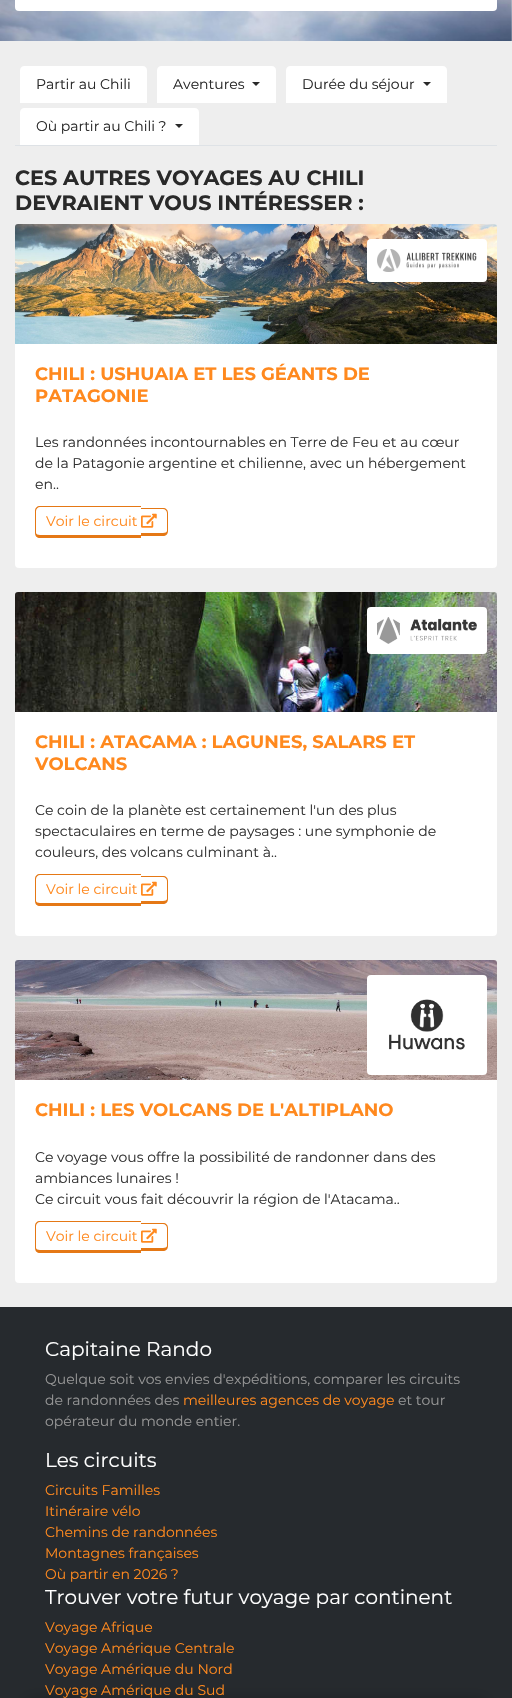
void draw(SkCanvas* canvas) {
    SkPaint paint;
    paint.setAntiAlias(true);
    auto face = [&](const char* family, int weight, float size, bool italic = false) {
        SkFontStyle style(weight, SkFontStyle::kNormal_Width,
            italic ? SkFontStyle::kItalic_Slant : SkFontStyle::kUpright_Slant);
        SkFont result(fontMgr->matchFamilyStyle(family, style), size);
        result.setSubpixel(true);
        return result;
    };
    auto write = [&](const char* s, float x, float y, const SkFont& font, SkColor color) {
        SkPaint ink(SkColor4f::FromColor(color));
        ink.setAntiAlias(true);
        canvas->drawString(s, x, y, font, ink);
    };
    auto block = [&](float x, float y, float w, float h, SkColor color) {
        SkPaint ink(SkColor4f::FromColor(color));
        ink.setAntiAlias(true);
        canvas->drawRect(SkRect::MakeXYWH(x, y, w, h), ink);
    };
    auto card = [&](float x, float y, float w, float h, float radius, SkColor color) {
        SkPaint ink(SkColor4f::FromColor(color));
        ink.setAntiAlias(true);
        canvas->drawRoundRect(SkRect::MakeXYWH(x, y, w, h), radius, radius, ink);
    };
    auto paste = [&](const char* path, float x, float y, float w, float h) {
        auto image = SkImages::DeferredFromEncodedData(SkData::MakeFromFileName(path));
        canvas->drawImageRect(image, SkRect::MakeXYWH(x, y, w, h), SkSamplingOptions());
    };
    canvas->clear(SK_ColorWHITE);
    paste("pic1.png", 0, 0, 512, 41);
    card(15, -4, 482, 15, 4, SK_ColorWHITE);
    block(0, 1307, 512, 391, SkColorSetRGB(38, 42, 46));
    paint.setColor(SkColorSetARGB(66, 0, 0, 0));
    paint.setMaskFilter(SkMaskFilter::MakeBlur(kNormal_SkBlurStyle, 7.5f));
    canvas->drawRoundRect(SkRect::MakeXYWH(26, 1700, 460, 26), 5, 5, paint);
    paint.setMaskFilter(nullptr);
    block(0, 41, 512, 1266, SkColorSetRGB(238, 238, 238));
    block(15, 145, 482, 1, SkColorSetRGB(222, 226, 230));
    paint.setColor(SK_ColorWHITE);
    canvas->drawPath(SkPathBuilder().moveTo(24, 66).lineTo(143, 66).cubicTo(145, 66, 147, 68, 147, 70).lineTo(147, 103).lineTo(20, 103).lineTo(20, 70).cubicTo(20, 68, 22, 66, 24, 66).close().detach(), paint);
    auto kFont1 = face("Montserrat", 400, 14);
    write("Partir au Chili", 36, 89, kFont1, SkColorSetRGB(41, 41, 41));
    canvas->drawPath(SkPathBuilder().moveTo(161, 66).lineTo(272, 66).cubicTo(274, 66, 276, 68, 276, 70).lineTo(276, 103).lineTo(157, 103).lineTo(157, 70).cubicTo(157, 68, 159, 66, 161, 66).close().detach(), paint);
    write("Aventures", 173, 89, kFont1, SkColorSetRGB(41, 41, 41));
    paint.setColor(SkColorSetRGB(41, 41, 41));
    canvas->drawPath(SkPathBuilder().moveTo(252, 82).lineTo(260, 82).lineTo(256, 86).close().detach(), paint);
    paint.setColor(SK_ColorWHITE);
    canvas->drawPath(SkPathBuilder().moveTo(290, 66).lineTo(443, 66).cubicTo(445, 66, 447, 68, 447, 70).lineTo(447, 103).lineTo(286, 103).lineTo(286, 70).cubicTo(286, 68, 288, 66, 290, 66).close().detach(), paint);
    write("Durée du séjour", 302, 89, kFont1, SkColorSetRGB(41, 41, 41));
    paint.setColor(SkColorSetRGB(41, 41, 41));
    canvas->drawPath(SkPathBuilder().moveTo(423, 82).lineTo(431, 82).lineTo(427, 86).close().detach(), paint);
    paint.setColor(SK_ColorWHITE);
    canvas->drawPath(SkPathBuilder().moveTo(24, 108).lineTo(195, 108).cubicTo(197, 108, 199, 110, 199, 112).lineTo(199, 145).lineTo(20, 145).lineTo(20, 112).cubicTo(20, 110, 22, 108, 24, 108).close().detach(), paint);
    write("Où partir au Chili ?", 36, 131, kFont1, SkColorSetRGB(41, 41, 41));
    paint.setColor(SkColorSetRGB(41, 41, 41));
    canvas->drawPath(SkPathBuilder().moveTo(175, 124).lineTo(183, 124).lineTo(179, 128).close().detach(), paint);
    auto kFont2 = face("Montserrat", 700, 20.75f);
    write("CES AUTRES VOYAGES AU CHILI", 15, 185, kFont2, SkColorSetRGB(41, 41, 41));
    write("DEVRAIENT VOUS INTÉRESSER :", 15, 210, kFont2, SkColorSetRGB(41, 41, 41));
    card(15, 224, 482, 344, 4, SK_ColorWHITE);
    paste("pic2.png", 15, 224, 482, 120);
    card(367, 239, 120, 43, 4, SK_ColorWHITE);
    paste("pic3.png", 377, 249, 100, 23);
    auto kFont3 = face("Montserrat", 700, 18);
    write("CHILI : USHUAIA ET LES GÉANTS DE", 35, 380, kFont3, SkColorSetRGB(255, 137, 30));
    write("PATAGONIE", 35, 402, kFont3, SkColorSetRGB(255, 137, 30));
    write("Les randonnées incontournables en Terre de Feu et au cœur", 35, 447, kFont1, SkColorSetRGB(51, 51, 51));
    write("de la Patagonie argentine et chilienne, avec un hébergement", 35, 468, kFont1, SkColorSetRGB(51, 51, 51));
    write("en..", 35, 489, kFont1, SkColorSetRGB(51, 51, 51));
    paint.setColor(SkColorSetRGB(229, 120, 21));
    canvas->drawPath(SkPathBuilder(SkPathFillType::kEvenOdd).moveTo(40, 506).lineTo(141, 506).lineTo(141, 538).lineTo(40, 538).cubicTo(37, 538, 35, 536, 35, 533).lineTo(35, 511).cubicTo(35, 508, 37, 506, 40, 506).close().moveTo(40, 507).lineTo(141, 507).lineTo(141, 535).lineTo(40, 535).cubicTo(38, 535, 36, 534, 36, 533).lineTo(36, 511).cubicTo(36, 509, 38, 507, 40, 507).close().detach(), paint);
    canvas->drawPath(SkPathBuilder(SkPathFillType::kEvenOdd).moveTo(141, 508).lineTo(163, 508).cubicTo(166, 508, 168, 510, 168, 513).lineTo(168, 531).cubicTo(168, 534, 166, 536, 163, 536).lineTo(141, 536).close().moveTo(141, 509).lineTo(163, 509).cubicTo(165, 509, 167, 511, 167, 513).lineTo(167, 531).cubicTo(167, 532, 165, 533, 163, 533).lineTo(141, 533).close().detach(), paint);
    write("Voir le circuit", 46, 526, kFont1, SkColorSetRGB(255, 137, 30));
    paste("pic4.png", 141, 513, 16, 15);
    card(15, 592, 482, 344, 4, SK_ColorWHITE);
    paste("pic5.png", 15, 592, 482, 120);
    card(367, 607, 120, 47, 4, SK_ColorWHITE);
    paste("pic6.png", 377, 617, 100, 27);
    write("CHILI : ATACAMA : LAGUNES, SALARS ET", 35, 748, kFont3, SkColorSetRGB(255, 137, 30));
    write("VOLCANS", 35, 770, kFont3, SkColorSetRGB(255, 137, 30));
    write("Ce coin de la planète est certainement l'un des plus", 35, 815, kFont1, SkColorSetRGB(51, 51, 51));
    write("spectaculaires en terme de paysages : une symphonie de", 35, 836, kFont1, SkColorSetRGB(51, 51, 51));
    write("couleurs, des volcans culminant à..", 35, 857, kFont1, SkColorSetRGB(51, 51, 51));
    canvas->drawPath(SkPathBuilder(SkPathFillType::kEvenOdd).moveTo(40, 874).lineTo(141, 874).lineTo(141, 906).lineTo(40, 906).cubicTo(37, 906, 35, 904, 35, 901).lineTo(35, 879).cubicTo(35, 876, 37, 874, 40, 874).close().moveTo(40, 875).lineTo(141, 875).lineTo(141, 903).lineTo(40, 903).cubicTo(38, 903, 36, 902, 36, 901).lineTo(36, 879).cubicTo(36, 877, 38, 875, 40, 875).close().detach(), paint);
    canvas->drawPath(SkPathBuilder(SkPathFillType::kEvenOdd).moveTo(141, 876).lineTo(163, 876).cubicTo(166, 876, 168, 878, 168, 881).lineTo(168, 899).cubicTo(168, 902, 166, 904, 163, 904).lineTo(141, 904).close().moveTo(141, 877).lineTo(163, 877).cubicTo(165, 877, 167, 879, 167, 881).lineTo(167, 899).cubicTo(167, 900, 165, 901, 163, 901).lineTo(141, 901).close().detach(), paint);
    write("Voir le circuit", 46, 894, kFont1, SkColorSetRGB(255, 137, 30));
    paste("pic4.png", 141, 881, 16, 15);
    card(15, 960, 482, 323, 4, SK_ColorWHITE);
    paste("pic7.png", 15, 960, 482, 120);
    card(367, 975, 120, 100, 4, SK_ColorWHITE);
    paste("pic8.png", 389, 999, 76, 51);
    write("CHILI : LES VOLCANS DE L'ALTIPLANO", 35, 1116, kFont3, SkColorSetRGB(255, 137, 30));
    write("Ce voyage vous offre la possibilité de randonner dans des", 35, 1162, kFont1, SkColorSetRGB(51, 51, 51));
    write("ambiances lunaires !", 35, 1183, kFont1, SkColorSetRGB(51, 51, 51));
    write("Ce circuit vous fait découvrir la région de l'Atacama..", 35, 1204, kFont1, SkColorSetRGB(51, 51, 51));
    canvas->drawPath(SkPathBuilder(SkPathFillType::kEvenOdd).moveTo(40, 1221).lineTo(141, 1221).lineTo(141, 1253).lineTo(40, 1253).cubicTo(37, 1253, 35, 1251, 35, 1248).lineTo(35, 1226).cubicTo(35, 1223, 37, 1221, 40, 1221).close().moveTo(40, 1222).lineTo(141, 1222).lineTo(141, 1250).lineTo(40, 1250).cubicTo(38, 1250, 36, 1249, 36, 1248).lineTo(36, 1226).cubicTo(36, 1224, 38, 1222, 40, 1222).close().detach(), paint);
    canvas->drawPath(SkPathBuilder(SkPathFillType::kEvenOdd).moveTo(141, 1223).lineTo(163, 1223).cubicTo(166, 1223, 168, 1225, 168, 1228).lineTo(168, 1246).cubicTo(168, 1249, 166, 1251, 163, 1251).lineTo(141, 1251).close().moveTo(141, 1224).lineTo(163, 1224).cubicTo(165, 1224, 167, 1226, 167, 1228).lineTo(167, 1246).cubicTo(167, 1247, 165, 1248, 163, 1248).lineTo(141, 1248).close().detach(), paint);
    write("Voir le circuit", 46, 1241, kFont1, SkColorSetRGB(255, 137, 30));
    paste("pic4.png", 141, 1228, 16, 15);
    auto kFont4 = face("Montserrat", 400, 20);
    write("Capitaine Rando", 45, 1356, kFont4, SK_ColorWHITE);
    write("Quelque soit vos envies d'expéditions, comparer les circuits", 45, 1384, kFont1, SkColorSetRGB(150, 150, 150));
    write("de randonnées des", 45, 1405, kFont1, SkColorSetRGB(150, 150, 150));
    write("meilleures agences de voyage", 183, 1405, kFont1, SkColorSetRGB(255, 137, 30));
    write("et tour", 398, 1405, kFont1, SkColorSetRGB(150, 150, 150));
    write("opérateur du monde entier.", 45, 1426, kFont1, SkColorSetRGB(150, 150, 150));
    write("Les circuits", 45, 1467, kFont4, SK_ColorWHITE);
    write("Circuits Familles", 45, 1495, kFont1, SkColorSetRGB(255, 137, 30));
    write("Itinéraire vélo", 45, 1516, kFont1, SkColorSetRGB(255, 137, 30));
    write("Chemins de randonnées", 45, 1537, kFont1, SkColorSetRGB(255, 137, 30));
    write("Montagnes françaises", 45, 1558, kFont1, SkColorSetRGB(255, 137, 30));
    write("Où partir en 2026 ?", 45, 1579, kFont1, SkColorSetRGB(255, 137, 30));
    write("Trouver votre futur voyage par continent", 45, 1604, kFont4, SK_ColorWHITE);
    write("Voyage Afrique", 45, 1632, kFont1, SkColorSetRGB(255, 137, 30));
    write("Voyage Amérique Centrale", 45, 1653, kFont1, SkColorSetRGB(255, 137, 30));
    write("Voyage Amérique du Nord", 45, 1674, kFont1, SkColorSetRGB(255, 137, 30));
    write("Voyage Amérique du Sud", 45, 1695, kFont1, SkColorSetRGB(255, 137, 30));
}
